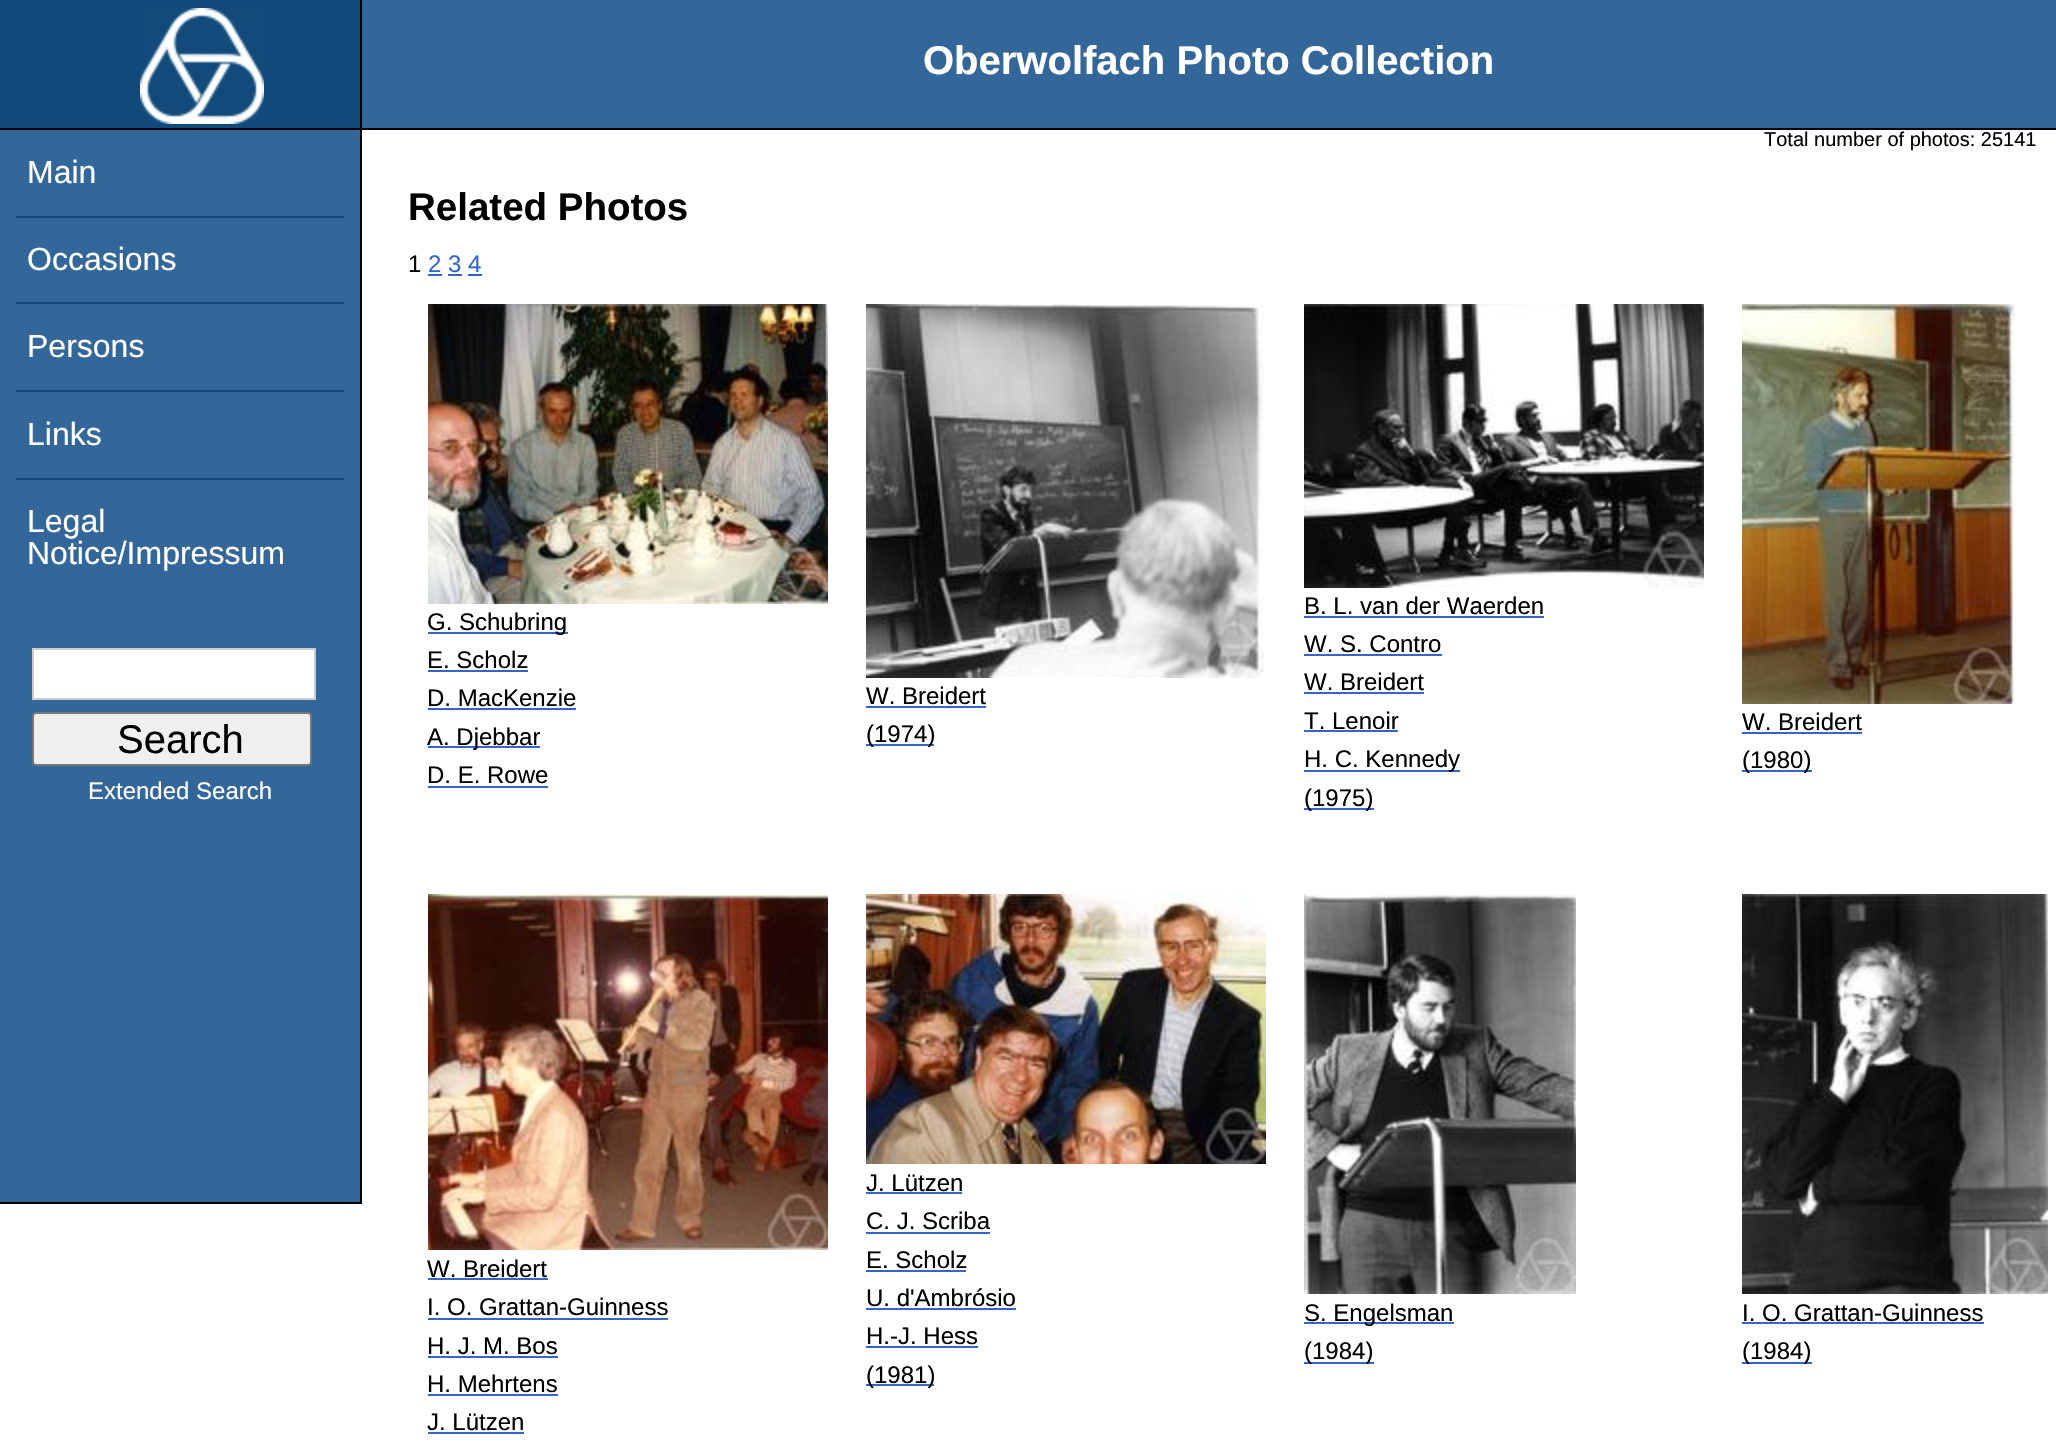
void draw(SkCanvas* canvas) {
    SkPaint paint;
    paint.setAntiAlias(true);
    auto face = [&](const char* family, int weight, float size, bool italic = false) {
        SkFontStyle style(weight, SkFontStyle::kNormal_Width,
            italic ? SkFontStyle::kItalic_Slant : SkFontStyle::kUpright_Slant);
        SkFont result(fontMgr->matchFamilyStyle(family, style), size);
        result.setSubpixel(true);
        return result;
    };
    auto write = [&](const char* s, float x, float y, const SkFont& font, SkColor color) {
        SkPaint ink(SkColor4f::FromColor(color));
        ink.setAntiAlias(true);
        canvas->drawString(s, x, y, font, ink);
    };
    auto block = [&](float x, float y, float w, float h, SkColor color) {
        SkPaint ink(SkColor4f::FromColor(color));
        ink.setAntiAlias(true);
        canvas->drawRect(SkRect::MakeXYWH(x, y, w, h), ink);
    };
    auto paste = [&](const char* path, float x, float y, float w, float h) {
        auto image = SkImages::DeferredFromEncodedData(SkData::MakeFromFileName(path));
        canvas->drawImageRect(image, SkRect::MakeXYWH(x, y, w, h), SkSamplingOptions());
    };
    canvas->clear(SK_ColorWHITE);
    block(362, 0, 1694, 128, SkColorSetRGB(51, 102, 153));
    block(0, 128, 2056, 2, SK_ColorBLACK);
    block(0, 0, 360, 128, SkColorSetRGB(16, 74, 123));
    block(360, 0, 2, 128, SK_ColorBLACK);
    paste("pic1.png", 140, 8, 124, 116);
    auto kFont1 = face("Liberation Sans", 700, 40);
    write("Oberwolfach Photo Collection", 923, 74, kFont1, SK_ColorWHITE);
    auto kFont2 = face("Liberation Sans", 400, 20);
    write("Total number of photos: 25141", 1764, 146, kFont2, SK_ColorBLACK);
    block(0, 130, 360, 1072, SkColorSetRGB(51, 102, 153));
    block(360, 130, 2, 1074, SK_ColorBLACK);
    block(0, 1202, 362, 2, SK_ColorBLACK);
    auto kFont3 = face("Liberation Sans", 400, 32);
    write("Main", 27, 183, kFont3, SK_ColorWHITE);
    block(16, 216, 328, 2, SkColorSetRGB(16, 74, 123));
    write("Occasions", 27, 270, kFont3, SK_ColorWHITE);
    block(16, 302, 328, 2, SkColorSetRGB(16, 74, 123));
    write("Persons", 27, 357, kFont3, SK_ColorWHITE);
    block(16, 390, 328, 2, SkColorSetRGB(16, 74, 123));
    write("Links", 27, 445, kFont3, SK_ColorWHITE);
    block(16, 478, 328, 2, SkColorSetRGB(16, 74, 123));
    write("Legal", 27, 532, kFont3, SK_ColorWHITE);
    write("Notice/Impressum", 27, 564, kFont3, SK_ColorWHITE);
    paint.setColor(SK_ColorWHITE);
    canvas->drawRect(SkRect::MakeXYWH(33, 649, 282, 50), paint);
    paint.setStyle(SkPaint::kStroke_Style);
    paint.setStrokeWidth(2);
    paint.setColor(SkColorSetRGB(204, 204, 204));
    canvas->drawRect(SkRect::MakeXYWH(33, 649, 282, 50), paint);
    paint.setStyle(SkPaint::kFill_Style);
    paint.setColor(SkColorSetRGB(239, 239, 239));
    canvas->drawRoundRect(SkRect::MakeXYWH(33, 713, 278, 52), 3, 3, paint);
    paint.setStyle(SkPaint::kStroke_Style);
    paint.setColor(SkColorSetRGB(118, 118, 118));
    canvas->drawRoundRect(SkRect::MakeXYWH(33, 713, 278, 52), 3, 3, paint);
    auto kFont4 = face("Liberation Sans", 400, 40);
    write("Search", 117, 753, kFont4, SK_ColorBLACK);
    auto kFont5 = face("Liberation Sans", 400, 24);
    write("Extended Search", 88, 799, kFont5, SK_ColorWHITE);
    auto kFont6 = face("Liberation Sans", 700, 38.5f);
    write("Related Photos", 408, 220, kFont6, SK_ColorBLACK);
    write("1", 408, 272, kFont5, SK_ColorBLACK);
    write("2 3 4", 428, 272, kFont5, SkColorSetRGB(51, 102, 204));
    block(428, 274, 14, 2, SkColorSetRGB(51, 102, 204));
    block(448, 274, 14, 2, SkColorSetRGB(51, 102, 204));
    block(468, 274, 14, 2, SkColorSetRGB(51, 102, 204));
    paste("pic2.png", 428, 304, 400, 300);
    block(428, 632, 140, 2, SkColorSetRGB(51, 102, 204));
    write("G. Schubring", 427, 630, kFont5, SK_ColorBLACK);
    write("E. Scholz", 427, 668, kFont5, SK_ColorBLACK);
    block(428, 670, 100, 2, SkColorSetRGB(51, 102, 204));
    write("D. MacKenzie", 427, 706, kFont5, SK_ColorBLACK);
    block(428, 708, 148, 2, SkColorSetRGB(51, 102, 204));
    block(428, 746, 112, 2, SkColorSetRGB(51, 102, 204));
    write("A. Djebbar", 427, 745, kFont5, SK_ColorBLACK);
    write("D. E. Rowe", 427, 783, kFont5, SK_ColorBLACK);
    block(428, 786, 120, 2, SkColorSetRGB(51, 102, 204));
    paste("pic3.png", 866, 304, 398, 374);
    write("W. Breidert", 866, 704, kFont5, SK_ColorBLACK);
    block(866, 706, 120, 2, SkColorSetRGB(51, 102, 204));
    block(866, 744, 68, 2, SkColorSetRGB(51, 102, 204));
    write("(1974)", 866, 742, kFont5, SK_ColorBLACK);
    paste("pic4.png", 1304, 304, 400, 284);
    write("B. L. van der Waerden", 1304, 614, kFont5, SK_ColorBLACK);
    block(1304, 616, 240, 2, SkColorSetRGB(51, 102, 204));
    write("W. S. Contro", 1304, 652, kFont5, SK_ColorBLACK);
    block(1304, 654, 138, 2, SkColorSetRGB(51, 102, 204));
    write("W. Breidert", 1304, 690, kFont5, SK_ColorBLACK);
    block(1304, 692, 120, 2, SkColorSetRGB(51, 102, 204));
    write("T. Lenoir", 1304, 729, kFont5, SK_ColorBLACK);
    block(1304, 730, 94, 2, SkColorSetRGB(51, 102, 204));
    block(1304, 770, 156, 2, SkColorSetRGB(51, 102, 204));
    write("H. C. Kennedy", 1304, 767, kFont5, SK_ColorBLACK);
    block(1304, 808, 70, 2, SkColorSetRGB(51, 102, 204));
    write("(1975)", 1304, 806, kFont5, SK_ColorBLACK);
    paste("pic5.png", 1742, 304, 272, 400);
    write("W. Breidert", 1742, 730, kFont5, SK_ColorBLACK);
    block(1742, 732, 120, 2, SkColorSetRGB(51, 102, 204));
    block(1742, 770, 70, 2, SkColorSetRGB(51, 102, 204));
    write("(1980)", 1742, 768, kFont5, SK_ColorBLACK);
    paste("pic6.png", 428, 894, 400, 356);
    write("W. Breidert", 427, 1277, kFont5, SK_ColorBLACK);
    block(428, 1278, 120, 2, SkColorSetRGB(51, 102, 204));
    write("I. O. Grattan-Guinness", 427, 1315, kFont5, SK_ColorBLACK);
    block(428, 1318, 240, 2, SkColorSetRGB(51, 102, 204));
    write("H. J. M. Bos", 427, 1354, kFont5, SK_ColorBLACK);
    block(428, 1356, 130, 2, SkColorSetRGB(51, 102, 204));
    write("H. Mehrtens", 427, 1392, kFont5, SK_ColorBLACK);
    block(428, 1394, 130, 2, SkColorSetRGB(51, 102, 204));
    write("J. Lützen", 427, 1430, kFont5, SK_ColorBLACK);
    block(428, 1432, 96, 2, SkColorSetRGB(51, 102, 204));
    paste("pic7.png", 866, 894, 400, 270);
    write("J. Lützen", 866, 1191, kFont5, SK_ColorBLACK);
    block(866, 1192, 96, 2, SkColorSetRGB(51, 102, 204));
    write("C. J. Scriba", 866, 1229, kFont5, SK_ColorBLACK);
    block(866, 1232, 124, 2, SkColorSetRGB(51, 102, 204));
    write("E. Scholz", 866, 1268, kFont5, SK_ColorBLACK);
    block(866, 1270, 100, 2, SkColorSetRGB(51, 102, 204));
    write("U. d'Ambrósio", 866, 1306, kFont5, SK_ColorBLACK);
    block(866, 1308, 150, 2, SkColorSetRGB(51, 102, 204));
    write("H.-J. Hess", 866, 1344, kFont5, SK_ColorBLACK);
    block(866, 1346, 112, 2, SkColorSetRGB(51, 102, 204));
    block(866, 1384, 68, 2, SkColorSetRGB(51, 102, 204));
    write("(1981)", 866, 1383, kFont5, SK_ColorBLACK);
    paste("pic8.png", 1304, 894, 272, 400);
    block(1304, 1322, 150, 2, SkColorSetRGB(51, 102, 204));
    write("S. Engelsman", 1304, 1321, kFont5, SK_ColorBLACK);
    block(1304, 1362, 70, 2, SkColorSetRGB(51, 102, 204));
    write("(1984)", 1304, 1359, kFont5, SK_ColorBLACK);
    paste("pic9.png", 1742, 894, 306, 400);
    write("I. O. Grattan-Guinness", 1742, 1321, kFont5, SK_ColorBLACK);
    block(1742, 1322, 242, 2, SkColorSetRGB(51, 102, 204));
    block(1742, 1362, 70, 2, SkColorSetRGB(51, 102, 204));
    write("(1984)", 1742, 1359, kFont5, SK_ColorBLACK);
}
